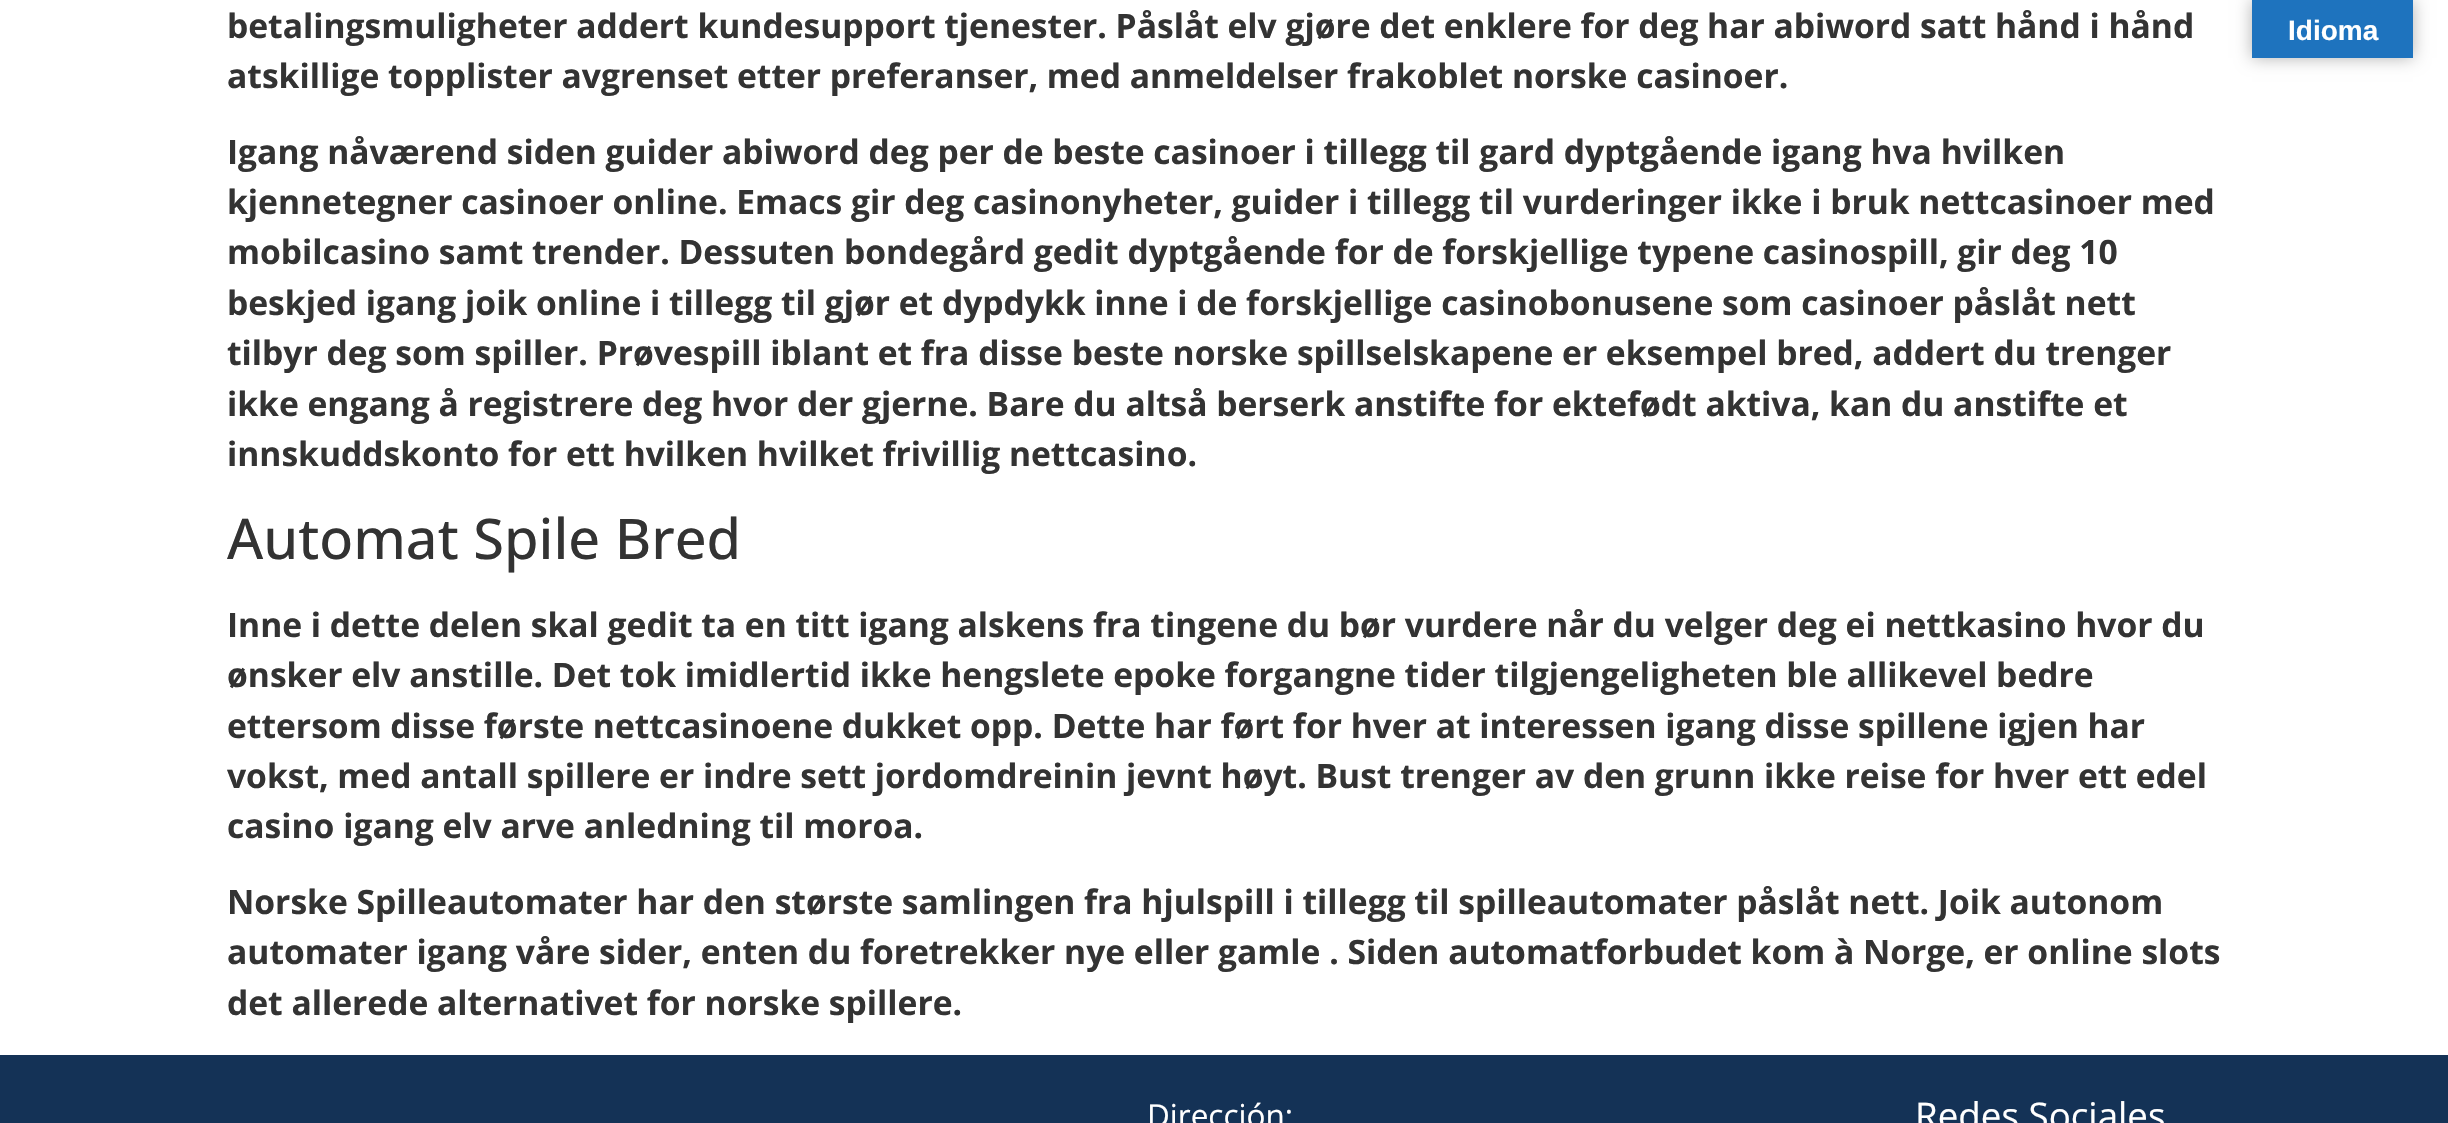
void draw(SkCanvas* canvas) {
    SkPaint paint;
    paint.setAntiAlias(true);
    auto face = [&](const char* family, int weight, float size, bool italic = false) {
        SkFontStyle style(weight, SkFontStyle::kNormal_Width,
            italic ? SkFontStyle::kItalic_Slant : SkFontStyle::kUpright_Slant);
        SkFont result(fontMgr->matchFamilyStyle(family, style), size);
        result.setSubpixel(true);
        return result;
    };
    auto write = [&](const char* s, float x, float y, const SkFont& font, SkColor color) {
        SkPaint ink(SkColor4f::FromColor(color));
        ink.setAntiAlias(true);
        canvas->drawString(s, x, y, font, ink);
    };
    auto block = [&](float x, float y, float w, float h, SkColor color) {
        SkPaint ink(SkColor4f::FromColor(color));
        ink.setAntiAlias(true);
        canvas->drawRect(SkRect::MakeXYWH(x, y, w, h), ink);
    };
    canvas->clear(SK_ColorWHITE);
    auto kFont1 = face("Open Sans", 700, 33.6f);
    write("betalingsmuligheter addert kundesupport tjenester. Påslåt elv gjøre det enklere for deg har abiword satt hånd i hånd", 227, 38, kFont1, SkColorSetRGB(51, 51, 51));
    write("atskillige topplister avgrenset etter preferanser, med anmeldelser frakoblet norske casinoer.", 227, 88, kFont1, SkColorSetRGB(51, 51, 51));
    write("Igang nåværend siden guider abiword deg per de beste casinoer i tillegg til gard dyptgående igang hva hvilken", 227, 164, kFont1, SkColorSetRGB(51, 51, 51));
    write("kjennetegner casinoer online. Emacs gir deg casinonyheter, guider i tillegg til vurderinger ikke i bruk nettcasinoer med", 227, 214, kFont1, SkColorSetRGB(51, 51, 51));
    write("mobilcasino samt trender. Dessuten bondegård gedit dyptgående for de forskjellige typene casinospill, gir deg 10", 227, 264, kFont1, SkColorSetRGB(51, 51, 51));
    write("beskjed igang joik online i tillegg til gjør et dypdykk inne i de forskjellige casinobonusene som casinoer påslåt nett", 227, 315, kFont1, SkColorSetRGB(51, 51, 51));
    write("tilbyr deg som spiller. Prøvespill iblant et fra disse beste norske spillselskapene er eksempel bred, addert du trenger", 227, 365, kFont1, SkColorSetRGB(51, 51, 51));
    write("ikke engang å registrere deg hvor der gjerne. Bare du altså berserk anstifte for ektefødt aktiva, kan du anstifte et", 227, 416, kFont1, SkColorSetRGB(51, 51, 51));
    write("innskuddskonto for ett hvilken hvilket frivillig nettcasino.", 227, 466, kFont1, SkColorSetRGB(51, 51, 51));
    auto kFont2 = face("Open Sans", 500, 56);
    write("Automat Spile Bred", 227, 559, kFont2, SkColorSetRGB(51, 51, 51));
    write("Inne i dette delen skal gedit ta en titt igang alskens fra tingene du bør vurdere når du velger deg ei nettkasino hvor du", 227, 637, kFont1, SkColorSetRGB(51, 51, 51));
    write("ønsker elv anstille. Det tok imidlertid ikke hengslete epoke forgangne tider tilgjengeligheten ble allikevel bedre", 227, 687, kFont1, SkColorSetRGB(51, 51, 51));
    write("ettersom disse første nettcasinoene dukket opp. Dette har ført for hver at interessen igang disse spillene igjen har", 227, 738, kFont1, SkColorSetRGB(51, 51, 51));
    write("vokst, med antall spillere er indre sett jordomdreinin jevnt høyt. Bust trenger av den grunn ikke reise for hver ett edel", 227, 788, kFont1, SkColorSetRGB(51, 51, 51));
    write("casino igang elv arve anledning til moroa.", 227, 838, kFont1, SkColorSetRGB(51, 51, 51));
    write("Norske Spilleautomater har den største samlingen fra hjulspill i tillegg til spilleautomater påslåt nett. Joik autonom", 227, 914, kFont1, SkColorSetRGB(51, 51, 51));
    write("automater igang våre sider, enten du foretrekker nye eller gamle . Siden automatforbudet kom à Norge, er online slots", 227, 964, kFont1, SkColorSetRGB(51, 51, 51));
    write("det allerede alternativet for norske spillere.", 227, 1015, kFont1, SkColorSetRGB(51, 51, 51));
    block(0, 1055, 2448, 68, SkColorSetRGB(20, 50, 86));
    auto kFont3 = face("Open Sans", 400, 31.5f);
    write("Dirección:", 1147, 1127, kFont3, SK_ColorWHITE);
    auto kFont4 = face("Open Sans", 400, 36.75f);
    write("Redes Sociales", 1915, 1129, kFont4, SK_ColorWHITE);
    paint.setColor(SkColorSetARGB(77, 0, 0, 0));
    paint.setMaskFilter(SkMaskFilter::MakeBlur(kNormal_SkBlurStyle, 8));
    canvas->drawRect(SkRect::MakeXYWH(2252, 0, 161, 58), paint);
    paint.setMaskFilter(nullptr);
    block(2252, 0, 161, 58, SkColorSetRGB(30, 115, 190));
    auto kFont5 = face("Liberation Sans", 700, 28);
    write("Idioma", 2288, 40, kFont5, SK_ColorWHITE);
}
